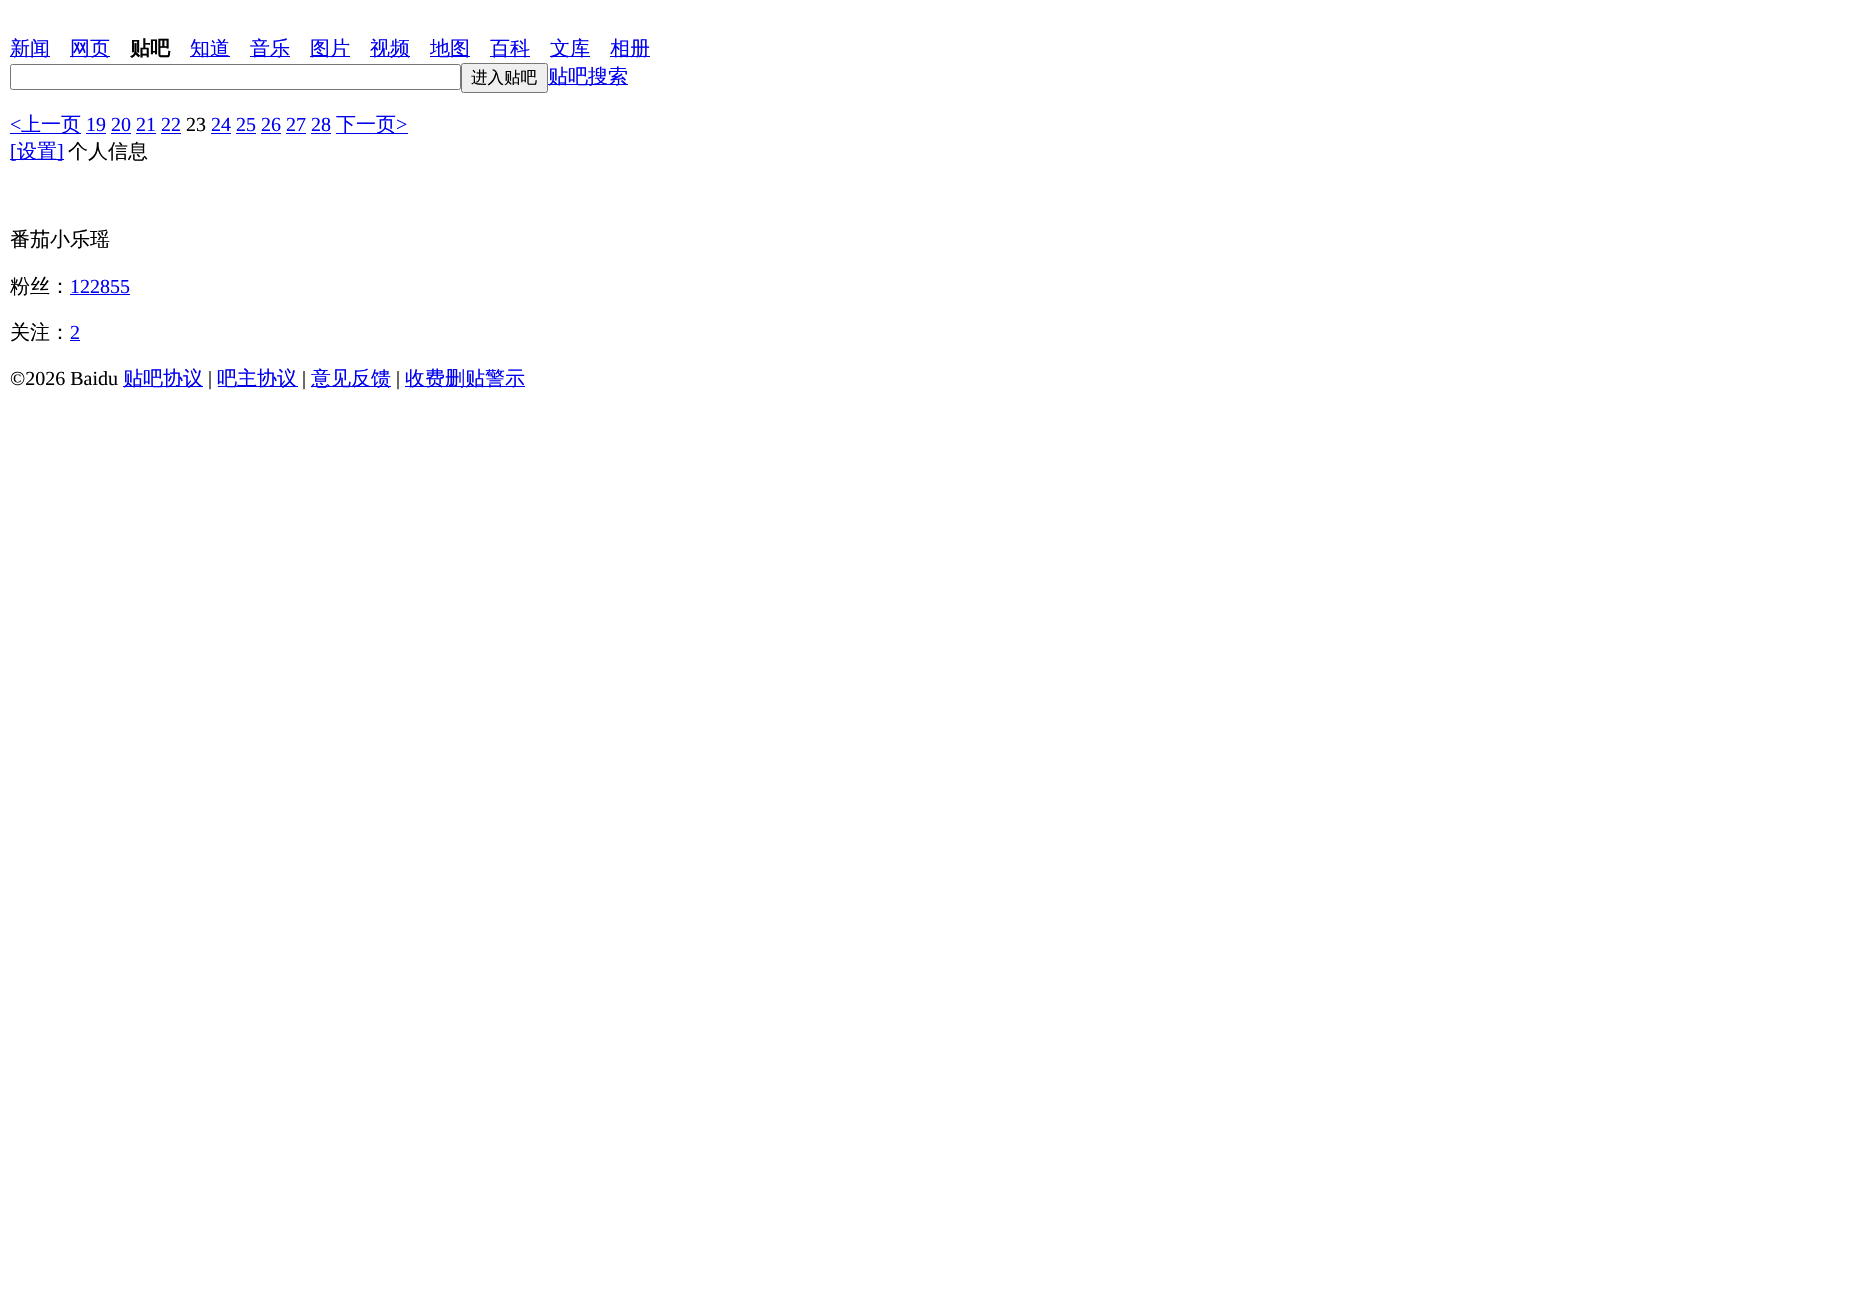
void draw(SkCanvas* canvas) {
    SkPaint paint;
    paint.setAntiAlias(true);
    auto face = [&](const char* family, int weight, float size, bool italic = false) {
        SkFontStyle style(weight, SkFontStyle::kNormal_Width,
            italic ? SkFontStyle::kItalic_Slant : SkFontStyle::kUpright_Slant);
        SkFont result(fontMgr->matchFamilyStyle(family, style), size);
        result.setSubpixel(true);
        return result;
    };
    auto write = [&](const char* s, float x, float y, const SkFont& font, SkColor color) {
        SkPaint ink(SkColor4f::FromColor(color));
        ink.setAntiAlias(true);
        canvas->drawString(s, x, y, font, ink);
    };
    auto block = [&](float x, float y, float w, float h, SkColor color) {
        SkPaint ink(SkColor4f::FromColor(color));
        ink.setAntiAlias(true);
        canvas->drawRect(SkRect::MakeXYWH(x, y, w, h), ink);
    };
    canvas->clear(SK_ColorWHITE);
    block(10, 56, 40, 1, SkColorSetRGB(0, 0, 238));
    auto kFont1 = face("WenQuanYi Zen Hei", 500, 20);
    write("新闻", 10, 55, kFont1, SkColorSetRGB(0, 0, 238));
    block(70, 56, 40, 1, SkColorSetRGB(0, 0, 238));
    write("网页", 70, 55, kFont1, SkColorSetRGB(0, 0, 238));
    auto kFont2 = face("WenQuanYi Zen Hei", 700, 20);
    write("贴吧", 130, 55, kFont2, SK_ColorBLACK);
    block(190, 56, 40, 1, SkColorSetRGB(0, 0, 238));
    write("知道", 190, 55, kFont1, SkColorSetRGB(0, 0, 238));
    block(250, 56, 40, 1, SkColorSetRGB(0, 0, 238));
    write("音乐", 250, 55, kFont1, SkColorSetRGB(0, 0, 238));
    block(310, 56, 40, 1, SkColorSetRGB(0, 0, 238));
    write("图片", 310, 55, kFont1, SkColorSetRGB(0, 0, 238));
    block(370, 56, 40, 1, SkColorSetRGB(0, 0, 238));
    write("视频", 370, 55, kFont1, SkColorSetRGB(0, 0, 238));
    block(430, 56, 40, 1, SkColorSetRGB(0, 0, 238));
    write("地图", 430, 55, kFont1, SkColorSetRGB(0, 0, 238));
    block(490, 56, 40, 1, SkColorSetRGB(0, 0, 238));
    write("百科", 490, 55, kFont1, SkColorSetRGB(0, 0, 238));
    block(550, 56, 40, 1, SkColorSetRGB(0, 0, 238));
    write("文库", 550, 55, kFont1, SkColorSetRGB(0, 0, 238));
    block(610, 56, 40, 1, SkColorSetRGB(0, 0, 238));
    write("相册", 610, 55, kFont1, SkColorSetRGB(0, 0, 238));
    paint.setStyle(SkPaint::kStroke_Style);
    paint.setStrokeWidth(1);
    paint.setColor(SkColorSetRGB(118, 118, 118));
    canvas->drawRoundRect(SkRect::MakeXYWH(10.5f, 64.5f, 450, 25), 2, 2, paint);
    paint.setStyle(SkPaint::kFill_Style);
    paint.setColor(SkColorSetRGB(239, 239, 239));
    canvas->drawRoundRect(SkRect::MakeXYWH(461.5f, 63.5f, 86, 29), 2, 2, paint);
    paint.setStyle(SkPaint::kStroke_Style);
    paint.setColor(SkColorSetRGB(118, 118, 118));
    canvas->drawRoundRect(SkRect::MakeXYWH(461.5f, 63.5f, 86, 29), 2, 2, paint);
    auto kFont3 = face("WenQuanYi Zen Hei", 500, 16.5f);
    write("进入贴吧", 471, 83, kFont3, SK_ColorBLACK);
    block(548, 84, 80, 1, SkColorSetRGB(0, 0, 238));
    write("贴吧搜索", 548, 83, kFont1, SkColorSetRGB(0, 0, 238));
    auto kFont4 = face("Liberation Serif", 400, 20);
    write("<", 10, 131, kFont4, SkColorSetRGB(0, 0, 238));
    block(10, 133, 71, 1, SkColorSetRGB(0, 0, 238));
    write("上一页", 21, 131, kFont1, SkColorSetRGB(0, 0, 238));
    write("19 20 21 22", 86, 131, kFont4, SkColorSetRGB(0, 0, 238));
    block(86, 133, 20, 1, SkColorSetRGB(0, 0, 238));
    write("23", 186, 131, kFont4, SK_ColorBLACK);
    write("24 25 26 27 28", 211, 131, kFont4, SkColorSetRGB(0, 0, 238));
    block(211, 133, 20, 1, SkColorSetRGB(0, 0, 238));
    block(336, 133, 72, 1, SkColorSetRGB(0, 0, 238));
    write("下一页", 336, 131, kFont1, SkColorSetRGB(0, 0, 238));
    write(">", 396, 131, kFont4, SkColorSetRGB(0, 0, 238));
    block(111, 133, 20, 1, SkColorSetRGB(0, 0, 238));
    block(136, 133, 20, 1, SkColorSetRGB(0, 0, 238));
    block(161, 133, 20, 1, SkColorSetRGB(0, 0, 238));
    block(236, 133, 20, 1, SkColorSetRGB(0, 0, 238));
    block(261, 133, 20, 1, SkColorSetRGB(0, 0, 238));
    block(286, 133, 20, 1, SkColorSetRGB(0, 0, 238));
    block(311, 133, 20, 1, SkColorSetRGB(0, 0, 238));
    block(10, 159, 54, 1, SkColorSetRGB(0, 0, 238));
    write("[", 10, 158, kFont4, SkColorSetRGB(0, 0, 238));
    write("设置", 17, 158, kFont1, SkColorSetRGB(0, 0, 238));
    write("]", 57, 158, kFont4, SkColorSetRGB(0, 0, 238));
    write("个人信息", 68, 158, kFont1, SK_ColorBLACK);
    write("番茄小乐瑶", 10, 246, kFont1, SK_ColorBLACK);
    write("粉丝：", 10, 293, kFont1, SK_ColorBLACK);
    write("122855", 70, 293, kFont4, SkColorSetRGB(0, 0, 238));
    block(70, 294, 60, 1, SkColorSetRGB(0, 0, 238));
    write("关注：", 10, 339, kFont1, SK_ColorBLACK);
    write("2", 70, 339, kFont4, SkColorSetRGB(0, 0, 238));
    block(70, 340, 10, 1, SkColorSetRGB(0, 0, 238));
    write("©2026 Baidu", 10, 385, kFont4, SK_ColorBLACK);
    block(123, 386, 80, 1, SkColorSetRGB(0, 0, 238));
    write("贴吧协议", 123, 385, kFont1, SkColorSetRGB(0, 0, 238));
    write("|", 208, 385, kFont4, SK_ColorBLACK);
    block(218, 386, 80, 1, SkColorSetRGB(0, 0, 238));
    write("吧主协议", 217, 385, kFont1, SkColorSetRGB(0, 0, 238));
    write("|", 302, 385, kFont4, SK_ColorBLACK);
    block(311, 386, 80, 1, SkColorSetRGB(0, 0, 238));
    write("意见反馈", 311, 385, kFont1, SkColorSetRGB(0, 0, 238));
    write("|", 396, 385, kFont4, SK_ColorBLACK);
    block(405, 386, 120, 1, SkColorSetRGB(0, 0, 238));
    write("收费删贴警示", 405, 385, kFont1, SkColorSetRGB(0, 0, 238));
}
